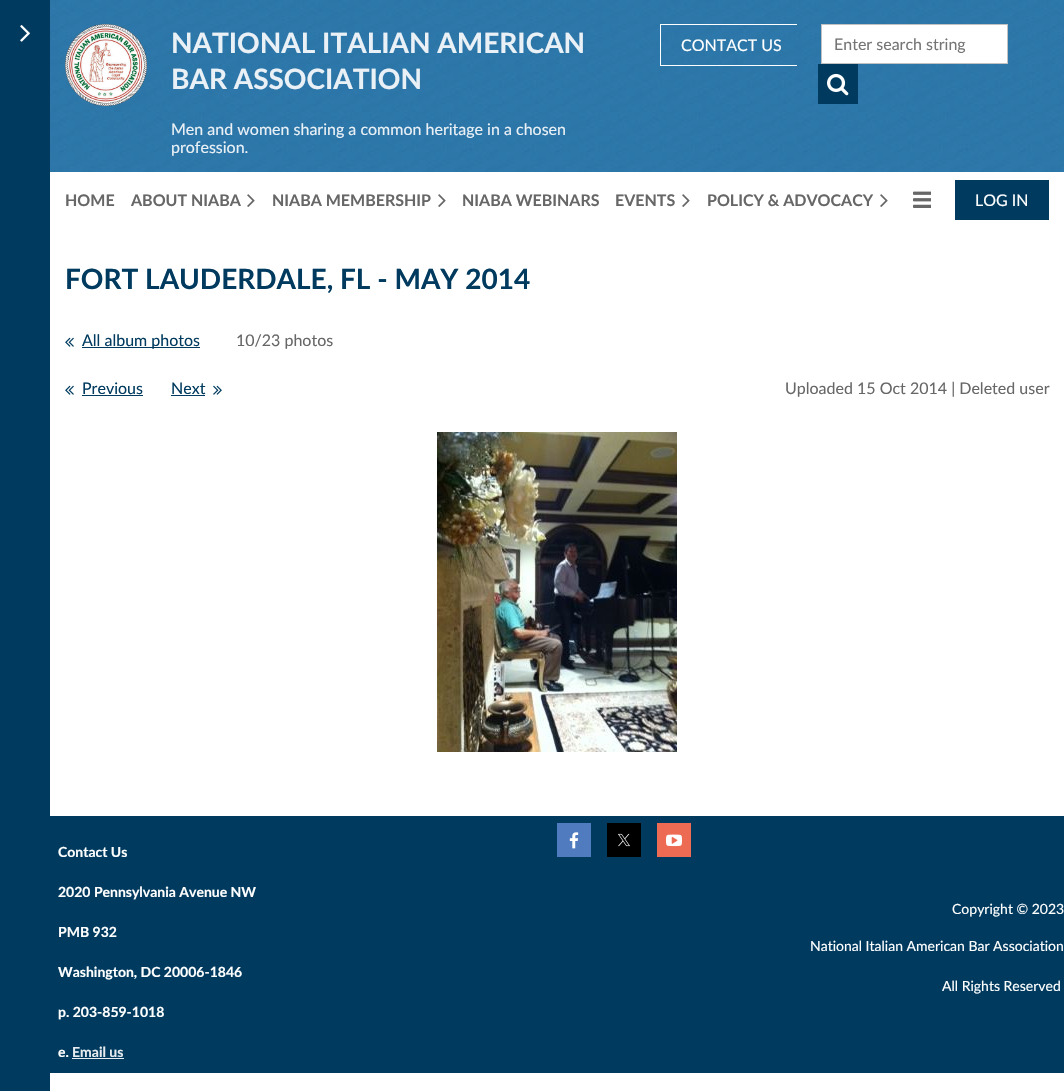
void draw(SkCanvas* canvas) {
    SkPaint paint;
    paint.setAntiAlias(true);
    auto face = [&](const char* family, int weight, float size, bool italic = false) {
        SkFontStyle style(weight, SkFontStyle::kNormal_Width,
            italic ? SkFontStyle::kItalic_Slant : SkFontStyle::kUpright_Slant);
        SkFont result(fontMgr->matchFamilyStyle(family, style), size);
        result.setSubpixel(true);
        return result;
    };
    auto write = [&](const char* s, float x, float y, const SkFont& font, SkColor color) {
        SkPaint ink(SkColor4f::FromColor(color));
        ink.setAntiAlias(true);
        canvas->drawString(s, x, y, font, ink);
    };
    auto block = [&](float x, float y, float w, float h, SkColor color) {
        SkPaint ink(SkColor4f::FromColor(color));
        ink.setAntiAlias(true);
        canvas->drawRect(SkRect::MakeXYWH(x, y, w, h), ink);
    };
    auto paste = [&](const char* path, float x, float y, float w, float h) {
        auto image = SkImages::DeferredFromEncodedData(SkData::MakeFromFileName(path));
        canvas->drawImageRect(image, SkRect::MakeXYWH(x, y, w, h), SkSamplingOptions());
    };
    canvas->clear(SK_ColorWHITE);
    block(0, 0, 50, 1091, SkColorSetRGB(0, 59, 95));
    paste("pic1.png", 20, 25, 10, 17);
    paste("pic2.png", 50, 0, 1014, 172);
    paste("pic3.png", 65, 24, 82, 82);
    auto kFont1 = face("Lato", 700, 28);
    write("NATIONAL ITALIAN AMERICAN", 171, 53, kFont1, SkColorSetRGB(234, 241, 246));
    write("BAR ASSOCIATION", 171, 89, kFont1, SkColorSetRGB(234, 241, 246));
    auto kFont2 = face("Lato", 400, 16);
    write("Men and women sharing a common heritage in a chosen", 171, 135, kFont2, SkColorSetRGB(234, 241, 246));
    write("profession.", 171, 153, kFont2, SkColorSetRGB(234, 241, 246));
    canvas->save();
    canvas->clipRect(SkRect::MakeXYWH(660, 24, 137, 42));
    paint.setStyle(SkPaint::kStroke_Style);
    paint.setStrokeWidth(1);
    paint.setColor(SK_ColorWHITE);
    canvas->drawRect(SkRect::MakeXYWH(660.5f, 24.5f, 142, 41), paint);
    canvas->restore();
    write("CONTACT US", 681, 51, kFont2, SK_ColorWHITE);
    paint.setStyle(SkPaint::kFill_Style);
    canvas->drawRect(SkRect::MakeXYWH(821.5f, 24.5f, 186, 39), paint);
    paint.setStyle(SkPaint::kStroke_Style);
    paint.setColor(SkColorSetRGB(193, 193, 193));
    canvas->drawRect(SkRect::MakeXYWH(821.5f, 24.5f, 186, 39), paint);
    write("Enter search string", 834, 50, kFont2, SkColorSetRGB(117, 117, 117));
    block(818, 64, 40, 40, SkColorSetRGB(0, 59, 95));
    paste("pic4.png", 827, 73, 22, 23);
    auto kFont3 = face("Lato", 700, 16);
    write("HOME", 65, 206, kFont3, SkColorSetRGB(103, 103, 103));
    write("ABOUT NIABA", 131, 206, kFont3, SkColorSetRGB(103, 103, 103));
    paste("pic5.png", 247, 194, 8, 13);
    write("NIABA MEMBERSHIP", 272, 206, kFont3, SkColorSetRGB(103, 103, 103));
    paste("pic5.png", 438, 194, 8, 13);
    write("NIABA WEBINARS", 462, 206, kFont3, SkColorSetRGB(103, 103, 103));
    write("EVENTS", 615, 206, kFont3, SkColorSetRGB(103, 103, 103));
    paste("pic5.png", 682, 194, 8, 13);
    write("POLICY & ADVOCACY", 707, 206, kFont3, SkColorSetRGB(103, 103, 103));
    paste("pic5.png", 880, 194, 8, 13);
    paste("pic6.png", 913, 191, 18, 17);
    block(955, 180, 94, 40, SkColorSetRGB(0, 59, 95));
    write("LOG IN", 975, 206, kFont2, SK_ColorWHITE);
    write("FORT LAUDERDALE, FL - MAY 2014", 65, 289, kFont1, SkColorSetRGB(0, 59, 95));
    paste("pic7.png", 65, 337, 9, 10);
    block(82, 347, 118, 1, SkColorSetRGB(0, 59, 95));
    write("All album photos", 82, 346, kFont2, SkColorSetRGB(0, 59, 95));
    write("10/23 photos", 236, 346, kFont2, SkColorSetRGB(103, 103, 103));
    paste("pic7.png", 65, 385, 9, 10);
    write("Previous", 82, 394, kFont2, SkColorSetRGB(0, 59, 95));
    block(82, 395, 61, 1, SkColorSetRGB(0, 59, 95));
    write("Next", 171, 394, kFont2, SkColorSetRGB(0, 59, 95));
    block(171, 395, 34, 1, SkColorSetRGB(0, 59, 95));
    paste("pic8.png", 213, 385, 9, 10);
    write("Uploaded 15 Oct 2014 | Deleted user", 785, 394, kFont2, SkColorSetRGB(103, 103, 103));
    paste("pic9.png", 437, 432, 240, 320);
    block(50, 816, 1014, 257, SkColorSetRGB(0, 59, 95));
    auto kFont4 = face("Lato", 700, 14);
    write("Contact Us", 58, 857, kFont4, SK_ColorWHITE);
    write("2020 Pennsylvania Avenue NW", 58, 897, kFont4, SK_ColorWHITE);
    write("PMB 932", 58, 937, kFont4, SK_ColorWHITE);
    write("Washington, DC 20006-1846", 58, 977, kFont4, SK_ColorWHITE);
    write("p. 203-859-1018", 58, 1017, kFont4, SK_ColorWHITE);
    write("e.", 58, 1057, kFont4, SK_ColorWHITE);
    block(72, 1058, 52, 1, SkColorSetRGB(230, 235, 239));
    write("Email us", 72, 1057, kFont4, SkColorSetRGB(230, 235, 239));
    block(557, 823, 34, 34, SkColorSetRGB(80, 123, 190));
    paste("pic10.png", 569, 832, 10, 17);
    block(607, 823, 34, 34, SK_ColorBLACK);
    paste("pic11.png", 618, 833, 12, 14);
    block(657, 823, 34, 34, SkColorSetRGB(236, 107, 82));
    paste("pic12.png", 666, 834, 16, 13);
    auto kFont5 = face("Lato", 400, 14);
    write("Copyright © 2023", 952, 914, kFont5, SK_ColorWHITE);
    write("National Italian American Bar Association", 810, 951, kFont5, SK_ColorWHITE);
    write("All Rights Reserved", 942, 991, kFont5, SK_ColorWHITE);
}
